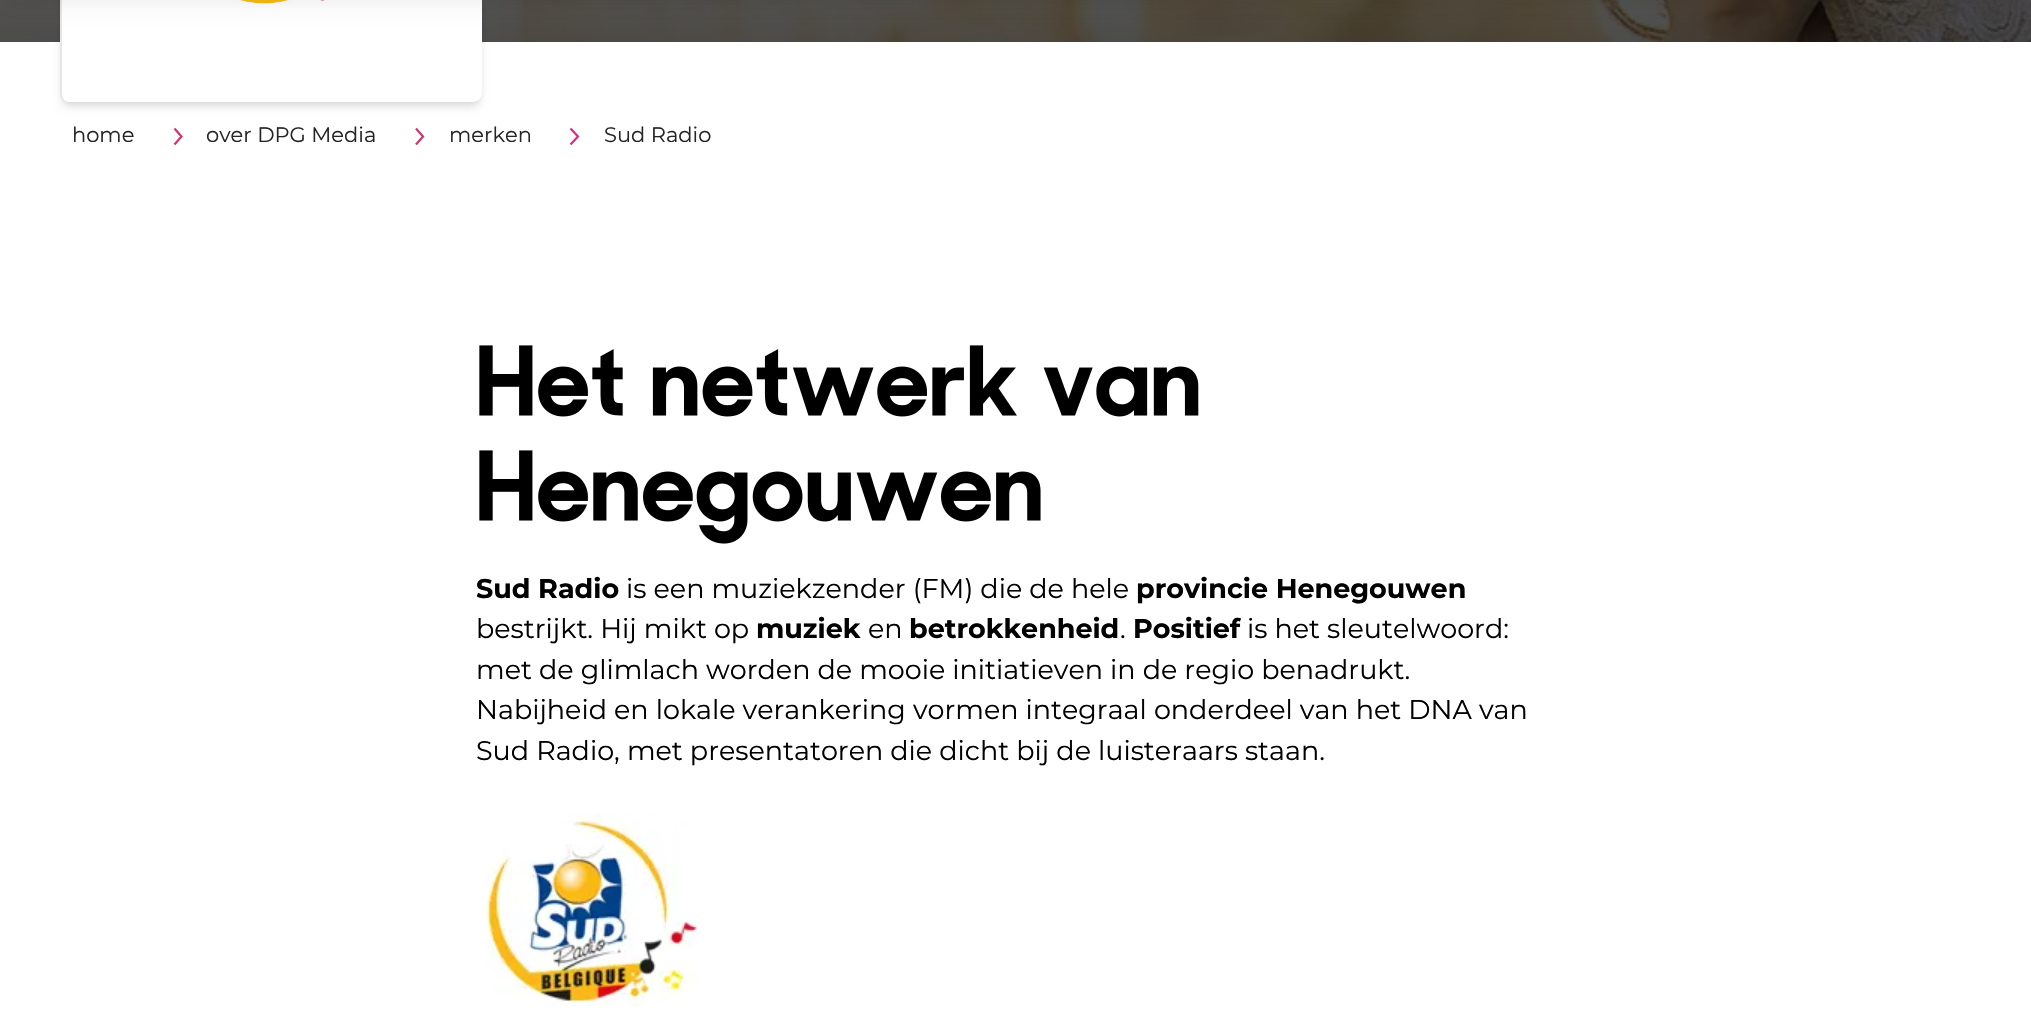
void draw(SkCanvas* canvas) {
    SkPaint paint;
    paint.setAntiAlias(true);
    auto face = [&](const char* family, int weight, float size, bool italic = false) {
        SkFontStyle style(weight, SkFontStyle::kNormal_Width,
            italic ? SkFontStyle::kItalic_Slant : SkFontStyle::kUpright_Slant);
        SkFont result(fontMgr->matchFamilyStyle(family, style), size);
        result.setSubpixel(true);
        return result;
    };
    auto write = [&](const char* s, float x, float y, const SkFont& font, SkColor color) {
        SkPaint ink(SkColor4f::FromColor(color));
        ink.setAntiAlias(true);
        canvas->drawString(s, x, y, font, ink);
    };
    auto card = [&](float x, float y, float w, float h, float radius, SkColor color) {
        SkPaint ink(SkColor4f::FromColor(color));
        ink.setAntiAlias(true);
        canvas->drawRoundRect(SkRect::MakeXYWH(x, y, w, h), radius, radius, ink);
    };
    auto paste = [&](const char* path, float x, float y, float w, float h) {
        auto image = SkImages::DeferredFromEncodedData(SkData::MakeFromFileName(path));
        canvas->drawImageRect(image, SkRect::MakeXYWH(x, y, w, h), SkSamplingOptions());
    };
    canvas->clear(SK_ColorWHITE);
    paste("pic2.png", 0, 0, 2031, 42);
    paint.setColor(SkColorSetARGB(26, 0, 0, 0));
    paint.setMaskFilter(SkMaskFilter::MakeBlur(kNormal_SkBlurStyle, 3));
    canvas->drawRoundRect(SkRect::MakeXYWH(63, -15, 416, 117), 6, 6, paint);
    paint.setMaskFilter(nullptr);
    paint.setMaskFilter(SkMaskFilter::MakeBlur(kNormal_SkBlurStyle, 4.5f));
    canvas->drawRoundRect(SkRect::MakeXYWH(62, -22, 418, 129), 8, 8, paint);
    paint.setMaskFilter(nullptr);
    card(60, -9, 422, 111, 9, SK_ColorWHITE);
    paint.setColor(SkColorSetRGB(229, 229, 229));
    canvas->drawPath(SkPathBuilder().moveTo(60, -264).lineTo(60, 93).cubicTo(60, 98, 64, 102, 69, 102).cubicTo(65, 102, 62, 98, 62, 93).lineTo(62, -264).cubicTo(62, -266, 63, -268, 64, -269).lineTo(63, -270).cubicTo(61, -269, 60, -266, 60, -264).close().detach(), paint);
    paste("pic1.png", 239, 0, 86, 4);
    paint.setColor(SkColorSetARGB(38, 0, 0, 0));
    paint.setMaskFilter(SkMaskFilter::MakeBlur(kNormal_SkBlurStyle, 15));
    canvas->drawRect(SkRect::MakeXYWH(0, -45, 2031, 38), paint);
    paint.setMaskFilter(nullptr);
    auto kFont1 = face("Montserrat", 400, 21);
    write("home", 72, 142, kFont1, SkColorSetRGB(36, 36, 36));
    paint.setStyle(SkPaint::kStroke_Style);
    paint.setStrokeWidth(2.2f);
    paint.setColor(SkColorSetRGB(210, 50, 120));
    canvas->drawPath(SkPathBuilder().moveTo(174.5f, 144.5f).lineTo(181.5f, 136.5f).lineTo(174.5f, 128.5f).detach(), paint);
    write("over DPG Media", 206, 142, kFont1, SkColorSetRGB(36, 36, 36));
    canvas->drawPath(SkPathBuilder().moveTo(416, 144.5f).lineTo(423, 136.5f).lineTo(416, 128.5f).detach(), paint);
    write("merken", 449, 142, kFont1, SkColorSetRGB(36, 36, 36));
    canvas->drawPath(SkPathBuilder().moveTo(570.5f, 144.5f).lineTo(578, 136.5f).lineTo(570.5f, 128.5f).detach(), paint);
    write("Sud Radio", 604, 142, kFont1, SkColorSetRGB(36, 36, 36));
    paste("pic3.png", 479, 345, 720, 72);
    paste("pic4.png", 479, 450, 562, 94);
    auto kFont2 = face("Montserrat", 700, 27);
    write("Sud Radio", 476, 598, kFont2, SK_ColorBLACK);
    auto kFont3 = face("Montserrat", 400, 27);
    write("is een muziekzender (FM) die de hele", 626, 598, kFont3, SK_ColorBLACK);
    write("provincie Henegouwen", 1136, 598, kFont2, SK_ColorBLACK);
    write("bestrijkt. Hij mikt op", 476, 638, kFont3, SK_ColorBLACK);
    write("muziek", 756, 638, kFont2, SK_ColorBLACK);
    write("en", 868, 638, kFont3, SK_ColorBLACK);
    write("betrokkenheid", 909, 638, kFont2, SK_ColorBLACK);
    write(".", 1120, 638, kFont3, SK_ColorBLACK);
    write("Positief", 1133, 638, kFont2, SK_ColorBLACK);
    write("is het sleutelwoord:", 1247, 638, kFont3, SK_ColorBLACK);
    write("met de glimlach worden de mooie initiatieven in de regio benadrukt.", 476, 679, kFont3, SK_ColorBLACK);
    write("Nabijheid en lokale verankering vormen integraal onderdeel van het DNA van", 476, 719, kFont3, SK_ColorBLACK);
    write("Sud Radio, met presentatoren die dicht bij de luisteraars staan.", 476, 760, kFont3, SK_ColorBLACK);
    paste("pic5.png", 486, 813, 212, 194);
}
